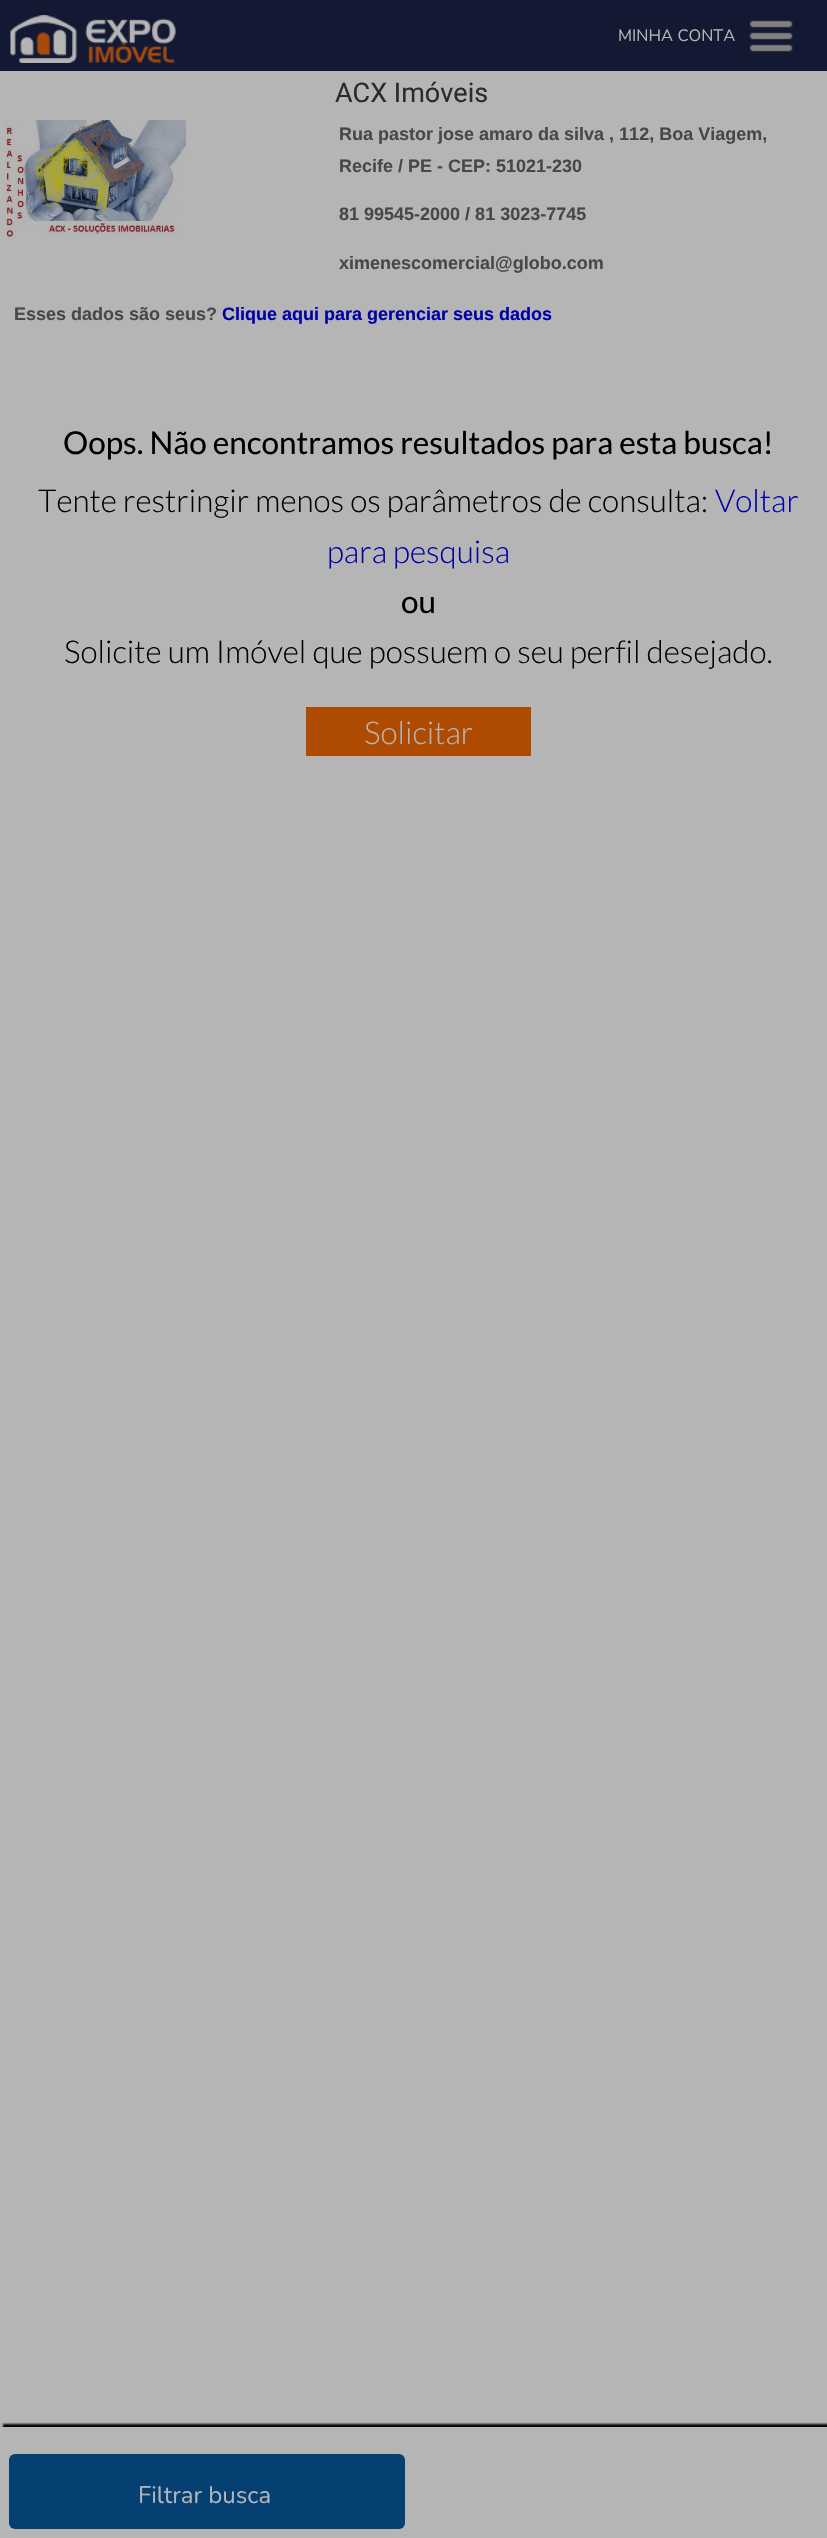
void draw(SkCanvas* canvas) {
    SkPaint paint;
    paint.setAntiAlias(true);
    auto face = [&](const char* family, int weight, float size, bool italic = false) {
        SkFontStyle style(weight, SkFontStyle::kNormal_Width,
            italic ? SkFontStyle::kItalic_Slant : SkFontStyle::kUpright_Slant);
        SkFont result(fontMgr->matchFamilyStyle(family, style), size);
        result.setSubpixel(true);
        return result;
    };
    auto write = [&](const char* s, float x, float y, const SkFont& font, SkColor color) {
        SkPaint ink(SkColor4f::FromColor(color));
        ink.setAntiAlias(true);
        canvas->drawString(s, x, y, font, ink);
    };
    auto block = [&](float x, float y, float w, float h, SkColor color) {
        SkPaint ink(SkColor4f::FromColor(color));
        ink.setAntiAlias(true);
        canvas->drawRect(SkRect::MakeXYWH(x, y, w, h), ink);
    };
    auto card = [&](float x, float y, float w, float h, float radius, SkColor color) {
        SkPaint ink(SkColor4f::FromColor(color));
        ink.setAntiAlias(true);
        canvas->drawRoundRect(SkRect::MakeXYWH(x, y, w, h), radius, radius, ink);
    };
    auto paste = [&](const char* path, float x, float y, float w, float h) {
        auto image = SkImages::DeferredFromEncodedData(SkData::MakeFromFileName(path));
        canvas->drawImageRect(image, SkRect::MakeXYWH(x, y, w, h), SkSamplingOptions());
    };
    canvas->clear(SkColorSetRGB(181, 181, 181));
    block(0, 0, 827, 71, SkColorSetRGB(20, 25, 51));
    paste("pic1.png", 10, 15, 166, 48);
    auto kFont1 = face("Nunito", 400, 16.5f);
    write("MINHA CONTA", 618, 41, kFont1, SkColorSetRGB(181, 181, 181));
    paste("pic2.png", 749, 20, 44, 32);
    auto kFont2 = face("Roboto", 400, 27);
    write("ACX Imóveis", 335, 102, kFont2, SkColorSetRGB(43, 43, 43));
    paste("pic3.png", 6, 120, 180, 120);
    auto kFont3 = face("Liberation Sans", 700, 18);
    write("Rua pastor jose amaro da silva , 112, Boa Viagem,", 339, 140, kFont3, SkColorSetRGB(72, 72, 72));
    write("Recife / PE - CEP: 51021-230", 339, 172, kFont3, SkColorSetRGB(72, 72, 72));
    write("81 99545-2000 / 81 3023-7745", 339, 220, kFont3, SkColorSetRGB(72, 72, 72));
    write("ximenescomercial@globo.com", 339, 269, kFont3, SkColorSetRGB(72, 72, 72));
    write("Esses dados são seus?", 14, 320, kFont3, SkColorSetRGB(72, 72, 72));
    write("Clique aqui para gerenciar seus dados", 222, 320, kFont3, SkColorSetRGB(0, 0, 169));
    canvas->save();
    canvas->clipRect(SkRect::MakeXYWH(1, 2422, 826, 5));
    paint.setColor(SK_ColorBLACK);
    paint.setMaskFilter(SkMaskFilter::MakeBlur(kNormal_SkBlurStyle, 1));
    canvas->drawRect(SkRect::MakeXYWH(3, 2424, 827, 111), paint);
    paint.setMaskFilter(nullptr);
    canvas->restore();
    card(9, 2454, 396, 75, 6, SkColorSetRGB(4, 64, 113));
    auto kFont4 = face("Nunito", 400, 24);
    write("Filtrar busca", 138, 2503, kFont4, SkColorSetRGB(181, 181, 181));
    auto kFont5 = face("Lato", 400, 31.5f);
    write("Oops. Não encontramos resultados para esta busca!", 63, 454, kFont5, SK_ColorBLACK);
    auto kFont6 = face("Lato", 300, 31.5f);
    write("Tente restringir menos os parâmetros de consulta:", 38, 512, kFont6, SK_ColorBLACK);
    write("Voltar", 715, 512, kFont6, SkColorSetRGB(0, 0, 169));
    write("para pesquisa", 327, 563, kFont6, SkColorSetRGB(0, 0, 169));
    write("ou", 401, 613, kFont5, SK_ColorBLACK);
    write("Solicite um Imóvel que possuem o seu perfil desejado.", 64, 663, kFont6, SK_ColorBLACK);
    block(306, 707, 225, 49, SkColorSetRGB(175, 74, 1));
    write("Solicitar", 364, 744, kFont6, SkColorSetRGB(181, 181, 181));
}
